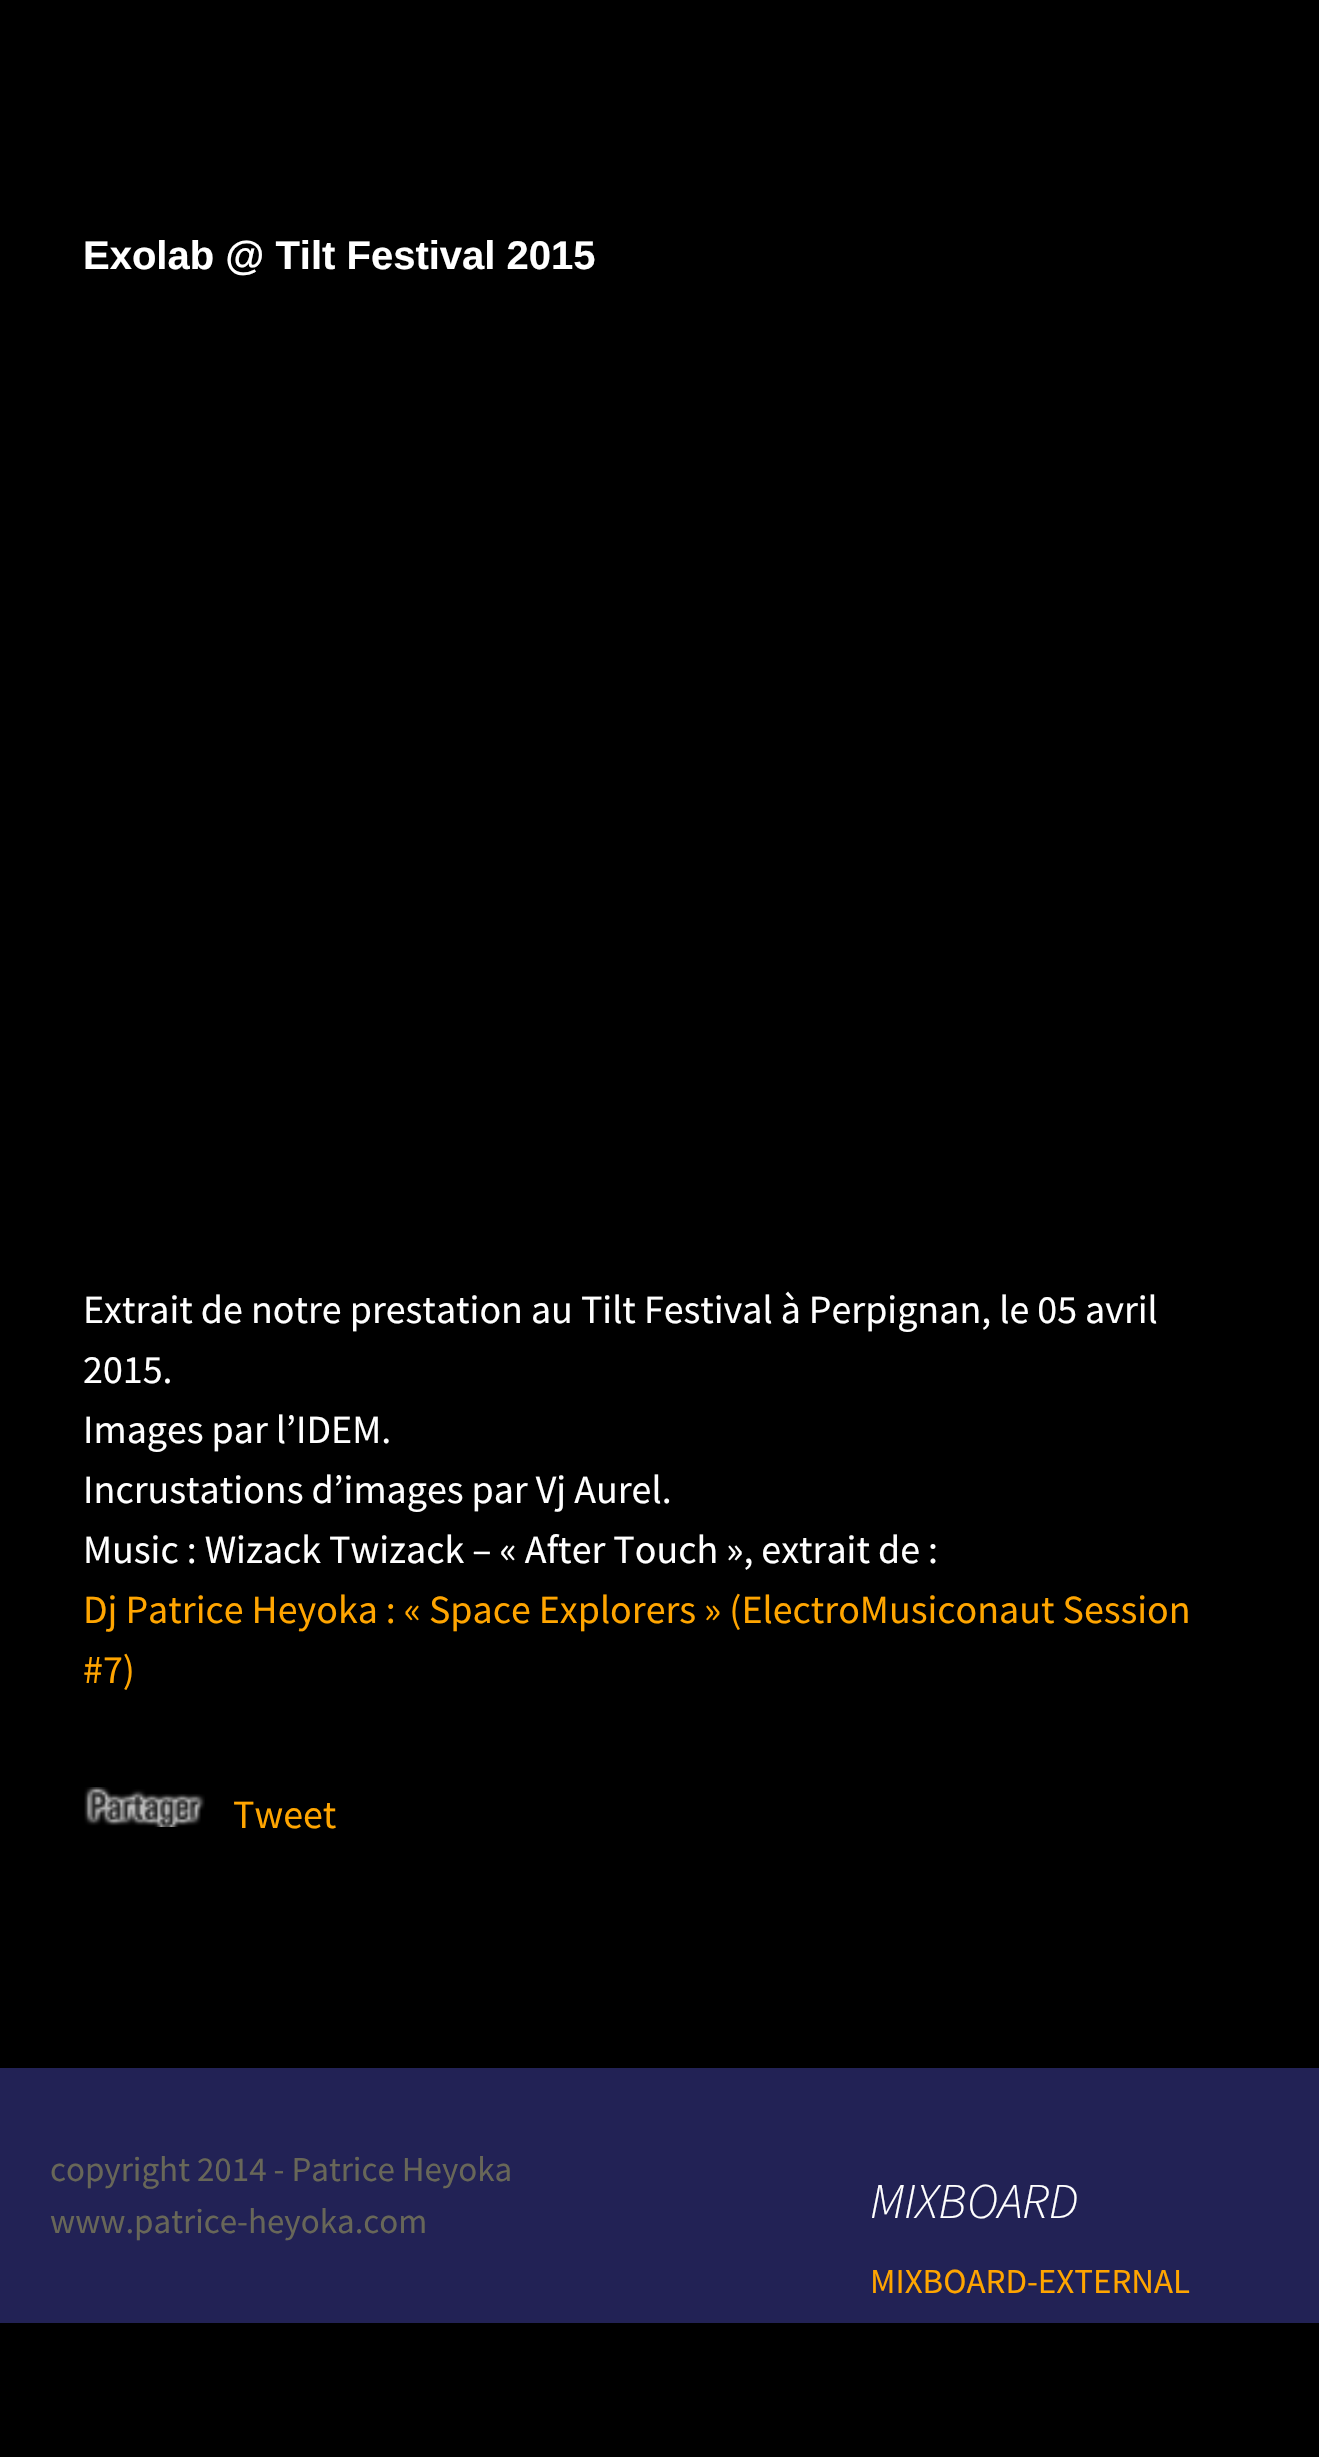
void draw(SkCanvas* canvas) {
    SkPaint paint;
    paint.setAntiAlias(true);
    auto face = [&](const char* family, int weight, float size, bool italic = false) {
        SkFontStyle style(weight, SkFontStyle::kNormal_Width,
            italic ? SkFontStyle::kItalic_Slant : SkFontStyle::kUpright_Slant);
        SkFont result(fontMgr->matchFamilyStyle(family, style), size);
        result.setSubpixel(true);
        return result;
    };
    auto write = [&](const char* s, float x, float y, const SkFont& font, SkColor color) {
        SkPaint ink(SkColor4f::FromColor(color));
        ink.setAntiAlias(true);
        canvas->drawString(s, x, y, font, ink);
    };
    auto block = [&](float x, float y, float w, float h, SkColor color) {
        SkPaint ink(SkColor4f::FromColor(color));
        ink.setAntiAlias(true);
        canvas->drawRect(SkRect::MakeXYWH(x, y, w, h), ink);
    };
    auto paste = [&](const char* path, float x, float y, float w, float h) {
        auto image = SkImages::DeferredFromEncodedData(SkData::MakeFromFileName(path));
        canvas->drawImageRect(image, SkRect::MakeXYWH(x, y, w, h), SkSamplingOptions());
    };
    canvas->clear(SK_ColorBLACK);
    auto kFont1 = face("Liberation Sans", 700, 40);
    write("Exolab @ Tilt Festival 2015", 83, 269, kFont1, SK_ColorWHITE);
    auto kFont2 = face("Source Sans Pro", 400, 40);
    write("Extrait de notre prestation au Tilt Festival à Perpignan, le 05 avril", 83, 1323, kFont2, SK_ColorWHITE);
    write("2015.", 83, 1383, kFont2, SK_ColorWHITE);
    write("Images par l’IDEM.", 83, 1443, kFont2, SK_ColorWHITE);
    write("Incrustations d’images par Vj Aurel.", 83, 1503, kFont2, SK_ColorWHITE);
    write("Music : Wizack Twizack – « After Touch », extrait de :", 83, 1563, kFont2, SK_ColorWHITE);
    write("Dj Patrice Heyoka : « Space Explorers » (ElectroMusiconaut Session", 83, 1623, kFont2, SkColorSetRGB(255, 165, 0));
    write("#7)", 83, 1683, kFont2, SkColorSetRGB(255, 165, 0));
    paste("pic1.png", 84, 1787, 121, 40);
    write("Tweet", 233, 1828, kFont2, SkColorSetRGB(255, 165, 0));
    block(0, 2068, 1319, 255, SkColorSetRGB(34, 34, 85));
    auto kFont3 = face("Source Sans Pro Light", 300, 50, true);
    write("MIXBOARD", 870, 2218, kFont3, SK_ColorWHITE);
    auto kFont4 = face("Source Sans Pro", 400, 35);
    write("MIXBOARD-EXTERNAL", 870, 2293, kFont4, SkColorSetRGB(255, 165, 0));
    write("copyright 2014 - Patrice Heyoka", 50, 2181, kFont4, SkColorSetRGB(104, 103, 88));
    write("www.patrice-heyoka.com", 50, 2233, kFont4, SkColorSetRGB(104, 103, 88));
}
